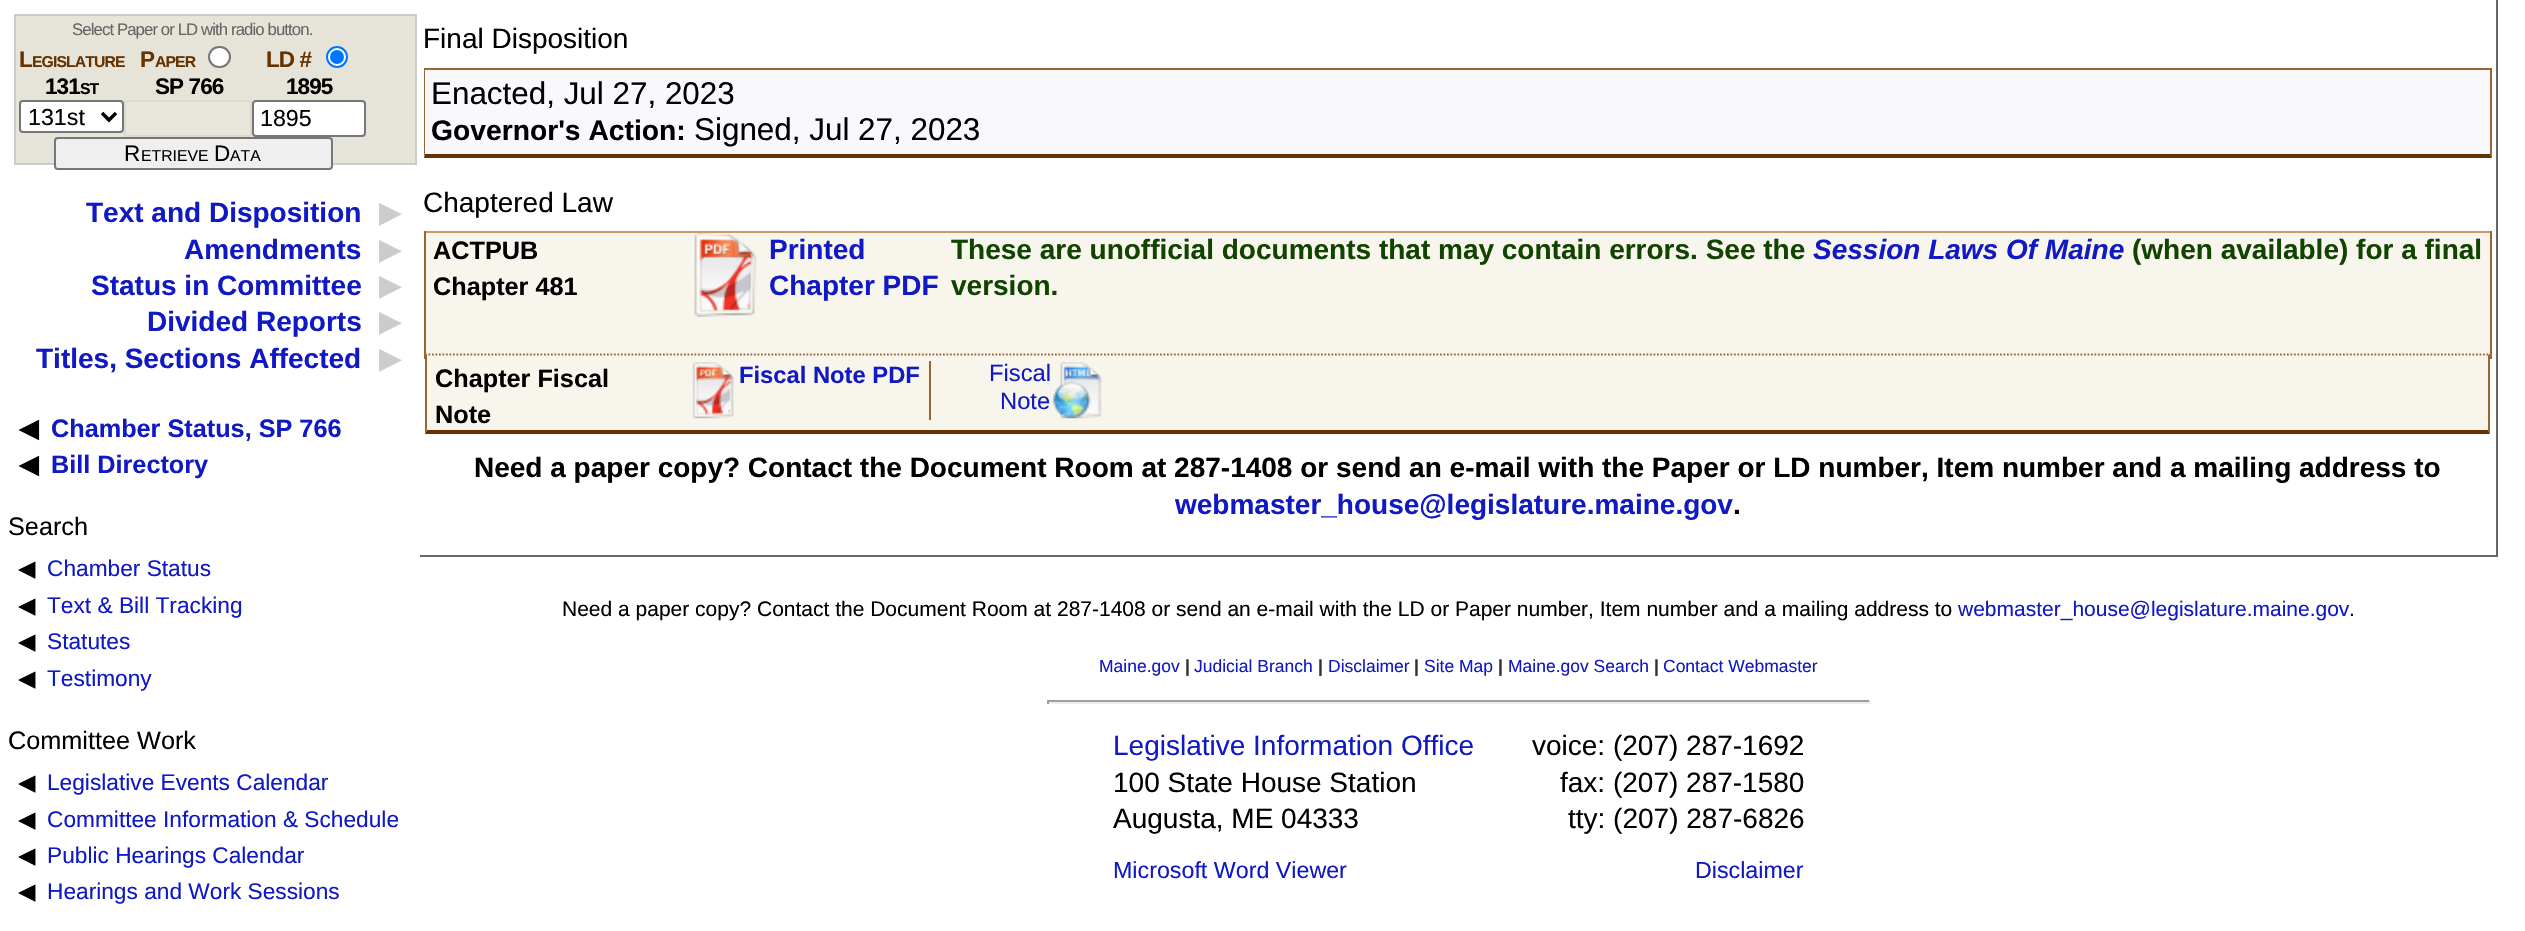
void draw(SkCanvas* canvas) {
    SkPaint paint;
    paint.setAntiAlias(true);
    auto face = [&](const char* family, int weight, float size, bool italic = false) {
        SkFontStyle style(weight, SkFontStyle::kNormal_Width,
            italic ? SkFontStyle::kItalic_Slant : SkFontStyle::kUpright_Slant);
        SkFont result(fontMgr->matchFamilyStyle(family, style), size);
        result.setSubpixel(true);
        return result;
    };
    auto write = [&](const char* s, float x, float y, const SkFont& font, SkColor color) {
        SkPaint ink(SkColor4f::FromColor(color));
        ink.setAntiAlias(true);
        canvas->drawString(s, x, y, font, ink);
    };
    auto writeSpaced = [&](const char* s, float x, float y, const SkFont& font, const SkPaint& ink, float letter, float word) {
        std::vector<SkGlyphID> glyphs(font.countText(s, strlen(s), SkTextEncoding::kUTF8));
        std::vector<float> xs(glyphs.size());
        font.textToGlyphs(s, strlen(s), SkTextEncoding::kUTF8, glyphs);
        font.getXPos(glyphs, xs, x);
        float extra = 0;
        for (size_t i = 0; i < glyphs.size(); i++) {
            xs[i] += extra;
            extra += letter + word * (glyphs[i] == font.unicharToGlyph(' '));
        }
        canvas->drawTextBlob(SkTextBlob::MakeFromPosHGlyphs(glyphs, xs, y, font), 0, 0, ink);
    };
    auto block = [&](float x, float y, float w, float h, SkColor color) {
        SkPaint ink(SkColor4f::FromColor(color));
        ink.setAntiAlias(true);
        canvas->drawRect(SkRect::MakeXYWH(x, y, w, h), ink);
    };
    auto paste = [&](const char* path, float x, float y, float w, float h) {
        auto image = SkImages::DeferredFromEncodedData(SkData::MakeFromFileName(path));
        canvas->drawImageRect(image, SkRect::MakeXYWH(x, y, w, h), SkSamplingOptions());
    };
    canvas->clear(SK_ColorWHITE);
    paint.setColor(SkColorSetRGB(230, 227, 216));
    canvas->drawRect(SkRect::MakeXYWH(15, 15, 401, 149), paint);
    paint.setStyle(SkPaint::kStroke_Style);
    paint.setStrokeWidth(2);
    paint.setColor(SkColorSetRGB(204, 204, 204));
    canvas->drawRect(SkRect::MakeXYWH(15, 15, 401, 149), paint);
    auto kFont1 = face("Liberation Sans", 400, 16.75f);
    paint.setStyle(SkPaint::kFill_Style);
    paint.setColor(SkColorSetRGB(102, 102, 102));
    writeSpaced("Select Paper or LD with radio button.", 72, 35, kFont1, paint, -0.9f, 0);
    auto kFont2 = face("Liberation Sans", 700, 22.5f);
    paint.setColor(SkColorSetRGB(102, 51, 0));
    writeSpaced("L", 19, 67, kFont2, paint, -0.9f, 0);
    auto kFont3 = face("Liberation Sans", 700, 15.75f);
    writeSpaced("EGISLATURE", 32, 67, kFont3, paint, -0.9f, 0);
    paint.setColor(SK_ColorBLACK);
    writeSpaced("131", 45, 94, kFont2, paint, -0.9f, 0);
    writeSpaced("ST", 80, 94, kFont3, paint, -0.9f, 0);
    paint.setColor(SK_ColorWHITE);
    canvas->drawRoundRect(SkRect::MakeXYWH(20, 101, 103, 31), 3, 3, paint);
    paint.setStyle(SkPaint::kStroke_Style);
    paint.setColor(SkColorSetRGB(118, 118, 118));
    canvas->drawRoundRect(SkRect::MakeXYWH(20, 101, 103, 31), 3, 3, paint);
    paint.setStrokeWidth(3.5f);
    paint.setColor(SK_ColorBLACK);
    canvas->drawPath(SkPathBuilder().moveTo(102, 113).lineTo(109, 120).lineTo(116, 113).detach(), paint);
    auto kFont4 = face("Liberation Sans", 400, 23.25f);
    write("131st", 28, 125, kFont4, SK_ColorBLACK);
    paint.setStyle(SkPaint::kFill_Style);
    paint.setColor(SkColorSetRGB(102, 51, 0));
    writeSpaced("P", 140, 67, kFont2, paint, -0.9f, 0);
    writeSpaced("APER", 155, 67, kFont3, paint, -0.9f, 0);
    paint.setColor(SK_ColorWHITE);
    canvas->drawRoundRect(SkRect::MakeXYWH(209, 47, 21, 20), 10, 10, paint);
    paint.setStyle(SkPaint::kStroke_Style);
    paint.setStrokeWidth(2);
    paint.setColor(SkColorSetRGB(118, 118, 118));
    canvas->drawRoundRect(SkRect::MakeXYWH(209, 47, 21, 20), 10, 10, paint);
    paint.setStyle(SkPaint::kFill_Style);
    paint.setColor(SK_ColorBLACK);
    writeSpaced("SP 766", 155, 94, kFont2, paint, -0.9f, 0);
    paint.setColor(SkColorSetRGB(233, 230, 220));
    canvas->drawRoundRect(SkRect::MakeXYWH(125, 101, 126, 35), 3, 3, paint);
    paint.setStyle(SkPaint::kStroke_Style);
    paint.setColor(SkColorSetRGB(219, 216, 206));
    canvas->drawRoundRect(SkRect::MakeXYWH(125, 101, 126, 35), 3, 3, paint);
    paint.setStyle(SkPaint::kFill_Style);
    paint.setColor(SkColorSetRGB(102, 51, 0));
    writeSpaced("LD #", 266, 67, kFont2, paint, -0.9f, 0);
    paint.setColor(SK_ColorWHITE);
    canvas->drawCircle(337, 57, 10, paint);
    paint.setStyle(SkPaint::kStroke_Style);
    paint.setColor(SkColorSetRGB(0, 117, 255));
    canvas->drawCircle(337, 57, 10, paint);
    paint.setStyle(SkPaint::kFill_Style);
    canvas->drawCircle(337, 57, 7, paint);
    paint.setColor(SK_ColorBLACK);
    writeSpaced("1895", 286, 94, kFont2, paint, -0.9f, 0);
    paint.setColor(SK_ColorWHITE);
    canvas->drawRoundRect(SkRect::MakeXYWH(253, 101, 112, 35), 3, 3, paint);
    paint.setStyle(SkPaint::kStroke_Style);
    paint.setColor(SkColorSetRGB(118, 118, 118));
    canvas->drawRoundRect(SkRect::MakeXYWH(253, 101, 112, 35), 3, 3, paint);
    write("1895", 260, 126, kFont4, SK_ColorBLACK);
    paint.setStyle(SkPaint::kFill_Style);
    paint.setColor(SkColorSetRGB(239, 239, 239));
    canvas->drawRoundRect(SkRect::MakeXYWH(55, 138, 277, 31), 3, 3, paint);
    paint.setStyle(SkPaint::kStroke_Style);
    paint.setColor(SkColorSetRGB(118, 118, 118));
    canvas->drawRoundRect(SkRect::MakeXYWH(55, 138, 277, 31), 3, 3, paint);
    auto kFont5 = face("Liberation Sans", 400, 22.5f);
    write("R", 124, 161, kFont5, SK_ColorBLACK);
    auto kFont6 = face("Liberation Sans", 400, 15.75f);
    write("ETRIEVE", 141, 161, kFont6, SK_ColorBLACK);
    write("D", 214, 161, kFont5, SK_ColorBLACK);
    write("ATA", 230, 161, kFont6, SK_ColorBLACK);
    auto kFont7 = face("Liberation Sans", 700, 28);
    write("Text and Disposition", 86, 222, kFont7, SkColorSetRGB(16, 25, 195));
    auto kFont8 = face("DejaVu Sans", 700, 28);
    write("▶", 379, 222, kFont8, SkColorSetRGB(204, 204, 204));
    write("Amendments", 184, 259, kFont7, SkColorSetRGB(16, 25, 195));
    write("▶", 379, 259, kFont8, SkColorSetRGB(204, 204, 204));
    write("Status in Committee", 91, 295, kFont7, SkColorSetRGB(16, 25, 195));
    write("▶", 379, 295, kFont8, SkColorSetRGB(204, 204, 204));
    write("Divided Reports", 147, 331, kFont7, SkColorSetRGB(16, 25, 195));
    write("▶", 379, 331, kFont8, SkColorSetRGB(204, 204, 204));
    write("Titles, Sections Affected", 36, 368, kFont7, SkColorSetRGB(16, 25, 195));
    write("▶", 379, 368, kFont8, SkColorSetRGB(204, 204, 204));
    auto kFont9 = face("DejaVu Sans", 700, 25.25f);
    write("◀", 19, 437, kFont9, SK_ColorBLACK);
    auto kFont10 = face("Liberation Sans", 700, 25.25f);
    write("Chamber Status, SP 766", 51, 437, kFont10, SkColorSetRGB(16, 25, 195));
    write("◀", 19, 473, kFont9, SK_ColorBLACK);
    write("Bill Directory", 51, 473, kFont10, SkColorSetRGB(16, 25, 195));
    auto kFont11 = face("Liberation Sans", 400, 25.25f);
    write("Search", 8, 535, kFont11, SK_ColorBLACK);
    auto kFont12 = face("DejaVu Sans", 400, 22.7f);
    write("◀", 18, 576, kFont12, SK_ColorBLACK);
    auto kFont13 = face("Liberation Sans", 400, 22.7f);
    write("Chamber Status", 47, 576, kFont13, SkColorSetRGB(16, 25, 195));
    write("◀", 18, 613, kFont12, SK_ColorBLACK);
    write("Text & Bill Tracking", 47, 613, kFont13, SkColorSetRGB(16, 25, 195));
    write("◀", 18, 649, kFont12, SK_ColorBLACK);
    write("Statutes", 47, 649, kFont13, SkColorSetRGB(16, 25, 195));
    write("◀", 18, 686, kFont12, SK_ColorBLACK);
    write("Testimony", 47, 686, kFont13, SkColorSetRGB(16, 25, 195));
    write("Committee Work", 8, 749, kFont11, SK_ColorBLACK);
    write("◀", 18, 790, kFont12, SK_ColorBLACK);
    write("Legislative Events Calendar", 47, 790, kFont13, SkColorSetRGB(16, 25, 195));
    write("◀", 18, 827, kFont12, SK_ColorBLACK);
    write("Committee Information & Schedule", 47, 827, kFont13, SkColorSetRGB(16, 25, 195));
    write("◀", 18, 863, kFont12, SK_ColorBLACK);
    write("Public Hearings Calendar", 47, 863, kFont13, SkColorSetRGB(16, 25, 195));
    write("◀", 18, 899, kFont12, SK_ColorBLACK);
    write("Hearings and Work Sessions", 47, 899, kFont13, SkColorSetRGB(16, 25, 195));
    block(2496, 0, 2, 557, SkColorSetRGB(102, 102, 102));
    block(420, 555, 2077, 2, SkColorSetRGB(102, 102, 102));
    auto kFont14 = face("Liberation Sans", 400, 28);
    write("Final Disposition", 423, 48, kFont14, SK_ColorBLACK);
    block(425, 70, 2065, 84, SkColorSetRGB(248, 248, 253));
    block(424, 68, 2068, 2, SkColorSetRGB(153, 102, 51));
    paint.setStyle(SkPaint::kFill_Style);
    paint.setColor(SkColorSetRGB(153, 102, 51));
    canvas->drawPath(SkPathBuilder().moveTo(2492, 68).lineTo(2492, 158).lineTo(2490, 154).lineTo(2490, 70).close().detach(), paint);
    paint.setColor(SkColorSetRGB(102, 51, 0));
    canvas->drawPath(SkPathBuilder().moveTo(2492, 158).lineTo(424, 158).lineTo(425, 154).lineTo(2490, 154).close().detach(), paint);
    paint.setColor(SkColorSetRGB(153, 102, 51));
    canvas->drawPath(SkPathBuilder().moveTo(424, 158).lineTo(424, 68).lineTo(425, 70).lineTo(425, 154).close().detach(), paint);
    auto kFont15 = face("Liberation Sans", 400, 31.4f);
    write("Enacted, Jul 27, 2023", 431, 104, kFont15, SK_ColorBLACK);
    auto kFont16 = face("Liberation Sans", 700, 28.25f);
    write("Governor's Action:", 431, 140, kFont16, SK_ColorBLACK);
    write("Signed, Jul 27, 2023", 694, 140, kFont15, SK_ColorBLACK);
    write("Chaptered Law", 423, 212, kFont14, SK_ColorBLACK);
    block(426, 233, 2064, 121, SkColorSetRGB(248, 245, 237));
    block(424, 231, 2068, 2, SkColorSetRGB(204, 153, 102));
    block(2490, 231, 2, 128, SkColorSetRGB(153, 102, 51));
    block(424, 231, 2, 128, SkColorSetRGB(153, 102, 51));
    write("ACTPUB", 433, 259, kFont10, SK_ColorBLACK);
    write("Chapter 481", 433, 295, kFont10, SK_ColorBLACK);
    paste("pic1.png", 694, 232, 63, 85);
    write("Printed", 769, 259, kFont7, SkColorSetRGB(16, 25, 195));
    write("Chapter PDF", 769, 295, kFont7, SkColorSetRGB(16, 25, 195));
    write("These are unofficial documents that may contain errors. See the", 951, 259, kFont7, SkColorSetRGB(17, 68, 0));
    auto kFont17 = face("Liberation Sans", 700, 28, true);
    write("Session Laws Of Maine", 1813, 259, kFont17, SkColorSetRGB(16, 25, 195));
    write("(when available) for a final", 2132, 259, kFont7, SkColorSetRGB(17, 68, 0));
    write("version.", 951, 295, kFont7, SkColorSetRGB(17, 68, 0));
    block(425, 354, 2065, 80, SkColorSetRGB(248, 245, 237));
    paint.setStyle(SkPaint::kStroke_Style);
    paint.setStrokeWidth(1.8f);
    paint.setPathEffect(SkDashPathEffect::Make({{1.75f, 1.75f}}, 0));
    canvas->drawPath(SkPathBuilder().moveTo(425, 354.5f).lineTo(2490, 354.5f).detach(), paint);
    paint.setPathEffect(nullptr);
    paint.setStyle(SkPaint::kFill_Style);
    canvas->drawPath(SkPathBuilder().moveTo(2490, 354).lineTo(2490, 434).lineTo(2488, 430).lineTo(2488, 355).close().detach(), paint);
    paint.setColor(SkColorSetRGB(102, 51, 0));
    canvas->drawPath(SkPathBuilder().moveTo(2490, 434).lineTo(425, 434).lineTo(427, 430).lineTo(2488, 430).close().detach(), paint);
    paint.setColor(SkColorSetRGB(153, 102, 51));
    canvas->drawPath(SkPathBuilder().moveTo(425, 434).lineTo(425, 354).lineTo(427, 355).lineTo(427, 430).close().detach(), paint);
    write("Chapter Fiscal", 435, 387, kFont10, SK_ColorBLACK);
    write("Note", 435, 423, kFont10, SK_ColorBLACK);
    paste("pic2.png", 692, 362, 42, 57);
    auto kFont18 = face("Liberation Sans", 700, 23.75f);
    write("Fiscal Note PDF", 739, 383, kFont18, SkColorSetRGB(16, 25, 195));
    paste("pic3.png", 1053, 362, 49, 57);
    block(929, 361, 2, 59, SkColorSetRGB(153, 102, 51));
    auto kFont19 = face("Liberation Sans", 400, 23.75f);
    write("Fiscal", 989, 381, kFont19, SkColorSetRGB(16, 25, 195));
    write("Note", 1000, 409, kFont19, SkColorSetRGB(16, 25, 195));
    write("Need a paper copy? Contact the Document Room at 287-1408 or send an e-mail with the Paper or LD number, Item number and a mailing address to", 474, 477, kFont7, SK_ColorBLACK);
    write("webmaster_house@legislature.maine.gov", 1175, 514, kFont7, SkColorSetRGB(16, 25, 195));
    write(".", 1733, 514, kFont7, SK_ColorBLACK);
    auto kFont20 = face("Liberation Sans", 400, 21);
    write("Need a paper copy? Contact the Document Room at 287-1408 or send an e-mail with the LD or Paper number, Item number and a mailing address to", 562, 616, kFont20, SK_ColorBLACK);
    write("webmaster_house@legislature.maine.gov", 1958, 616, kFont20, SkColorSetRGB(16, 25, 195));
    write(".", 2349, 616, kFont20, SK_ColorBLACK);
    auto kFont21 = face("Liberation Sans", 400, 17.5f);
    write("Maine.gov", 1099, 672, kFont21, SkColorSetRGB(16, 25, 195));
    auto kFont22 = face("Liberation Sans", 700, 17.5f);
    write("|", 1185, 672, kFont22, SkColorSetRGB(48, 48, 48));
    write("Judicial Branch", 1194, 672, kFont21, SkColorSetRGB(16, 25, 195));
    write("|", 1318, 672, kFont22, SkColorSetRGB(48, 48, 48));
    write("Disclaimer", 1328, 672, kFont21, SkColorSetRGB(16, 25, 195));
    write("|", 1414, 672, kFont22, SkColorSetRGB(48, 48, 48));
    write("Site Map", 1424, 672, kFont21, SkColorSetRGB(16, 25, 195));
    write("|", 1498, 672, kFont22, SkColorSetRGB(48, 48, 48));
    write("Maine.gov Search", 1508, 672, kFont21, SkColorSetRGB(16, 25, 195));
    write("|", 1654, 672, kFont22, SkColorSetRGB(48, 48, 48));
    write("Contact Webmaster", 1663, 672, kFont21, SkColorSetRGB(16, 25, 195));
    block(1047, 700, 824, 2, SkColorSetRGB(159, 159, 159));
    block(1869, 700, 2, 4, SkColorSetRGB(238, 238, 238));
    block(1047, 702, 824, 2, SkColorSetRGB(238, 238, 238));
    block(1047, 700, 2, 4, SkColorSetRGB(159, 159, 159));
    write("Legislative Information Office", 1113, 755, kFont14, SkColorSetRGB(16, 25, 195));
    write("100 State House Station", 1113, 792, kFont14, SK_ColorBLACK);
    write("Augusta, ME 04333", 1113, 828, kFont14, SK_ColorBLACK);
    write("voice: (207) 287-1692", 1532, 755, kFont14, SK_ColorBLACK);
    write("fax: (207) 287-1580", 1560, 792, kFont14, SK_ColorBLACK);
    write("tty: (207) 287-6826", 1568, 828, kFont14, SK_ColorBLACK);
    write("Microsoft Word Viewer", 1113, 878, kFont4, SkColorSetRGB(16, 25, 195));
    write("Disclaimer", 1695, 878, kFont4, SkColorSetRGB(16, 25, 195));
}
